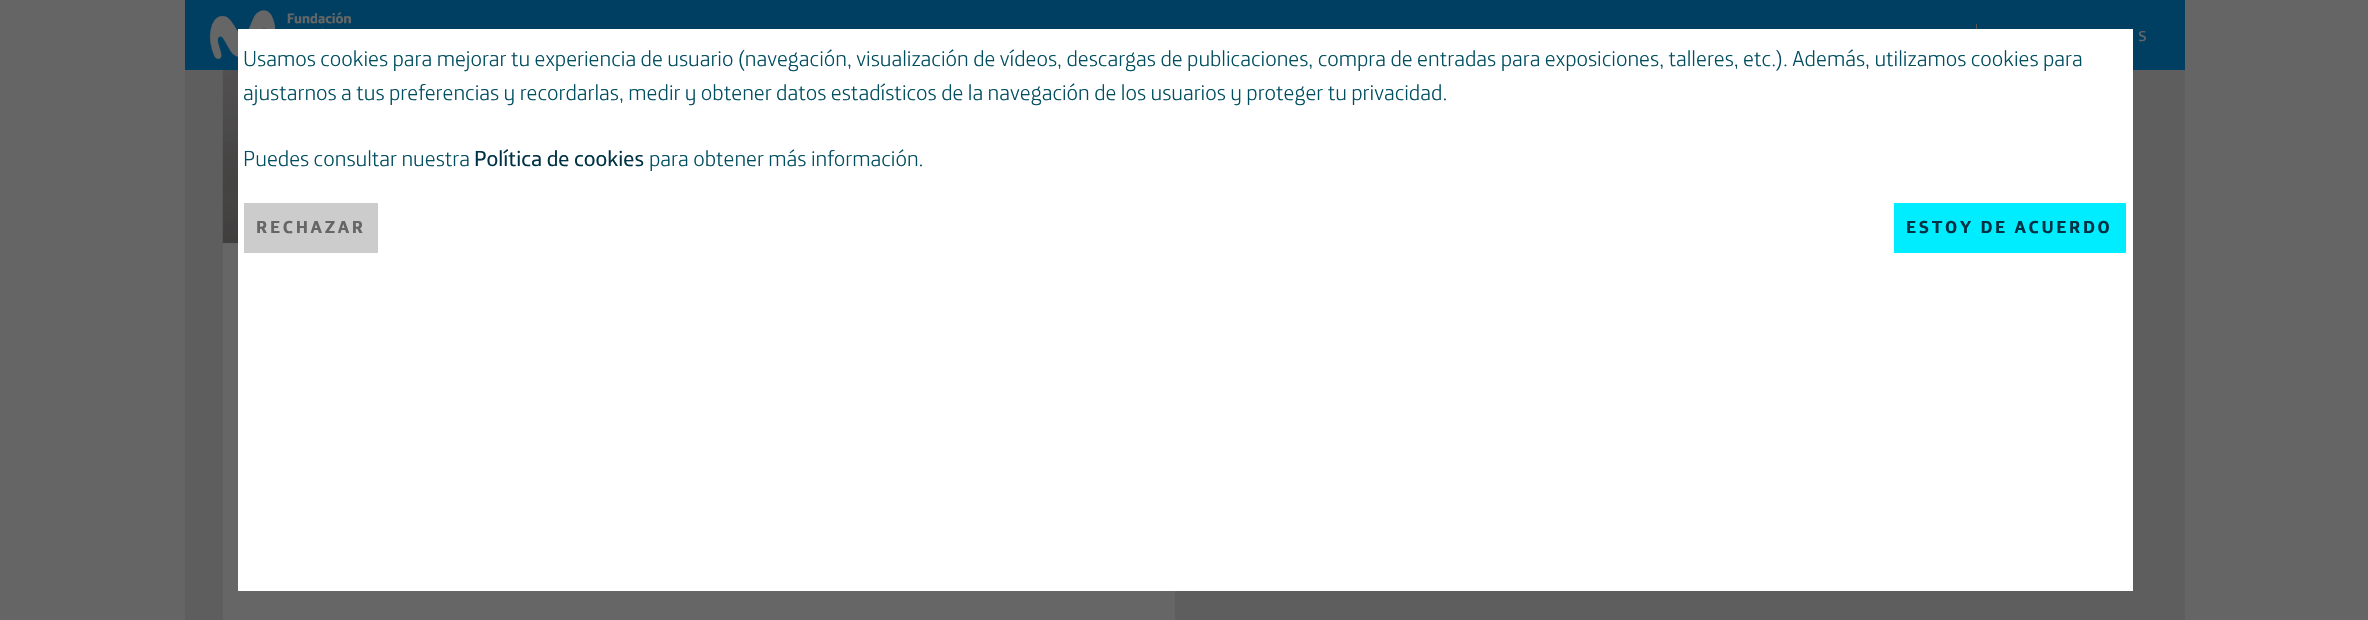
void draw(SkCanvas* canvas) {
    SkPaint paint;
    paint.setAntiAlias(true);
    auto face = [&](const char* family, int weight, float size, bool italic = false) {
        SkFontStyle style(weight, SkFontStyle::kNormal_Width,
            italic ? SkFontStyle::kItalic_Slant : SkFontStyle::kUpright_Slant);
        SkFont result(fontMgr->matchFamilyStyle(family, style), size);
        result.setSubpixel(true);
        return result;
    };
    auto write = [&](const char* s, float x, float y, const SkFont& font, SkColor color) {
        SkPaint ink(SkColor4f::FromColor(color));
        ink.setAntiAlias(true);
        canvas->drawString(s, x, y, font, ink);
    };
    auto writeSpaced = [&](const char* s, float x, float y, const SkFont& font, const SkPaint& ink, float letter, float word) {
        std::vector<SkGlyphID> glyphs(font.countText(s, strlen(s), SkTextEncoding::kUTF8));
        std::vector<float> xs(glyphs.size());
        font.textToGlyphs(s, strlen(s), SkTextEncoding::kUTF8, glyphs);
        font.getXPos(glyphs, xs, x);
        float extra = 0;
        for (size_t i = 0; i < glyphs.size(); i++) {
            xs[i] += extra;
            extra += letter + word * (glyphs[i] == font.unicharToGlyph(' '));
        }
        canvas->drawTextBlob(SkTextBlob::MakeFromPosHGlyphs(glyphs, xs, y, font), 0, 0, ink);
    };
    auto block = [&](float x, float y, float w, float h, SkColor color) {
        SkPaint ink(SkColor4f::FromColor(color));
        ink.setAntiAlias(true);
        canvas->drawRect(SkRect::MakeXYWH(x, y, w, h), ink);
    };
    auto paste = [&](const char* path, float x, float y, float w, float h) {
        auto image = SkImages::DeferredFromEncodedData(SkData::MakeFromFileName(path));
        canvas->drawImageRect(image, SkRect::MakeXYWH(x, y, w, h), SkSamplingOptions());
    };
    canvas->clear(SkColorSetRGB(101, 101, 101));
    block(185, 0, 2000, 70, SkColorSetRGB(0, 63, 98));
    paste("pic1.png", 209, 10, 143, 49);
    block(1976, 24, 1, 5, SkColorSetRGB(84, 85, 84));
    auto kFont1 = face("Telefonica", 400, 20);
    write("s", 2138, 41, kFont1, SkColorSetRGB(102, 102, 102));
    block(185, 70, 2000, 550, SkColorSetRGB(93, 94, 93));
    block(223, 243, 952, 377, SkColorSetRGB(102, 102, 102));
    paste("pic2.png", 222, 70, 16, 174);
    block(238, 29, 1895, 562, SK_ColorWHITE);
    auto kFont2 = face("Telefonica", 300, 22);
    write("Usamos cookies para mejorar tu experiencia de usuario (navegación, visualización de vídeos, descargas de publicaciones, compra de entradas para exposiciones, talleres, etc.). Además, utilizamos cookies para", 243, 66, kFont2, SkColorSetRGB(0, 78, 96));
    write("ajustarnos a tus preferencias y recordarlas, medir y obtener datos estadísticos de la navegación de los usuarios y proteger tu privacidad.", 243, 100, kFont2, SkColorSetRGB(0, 78, 96));
    write("Puedes consultar nuestra", 243, 166, kFont2, SkColorSetRGB(0, 78, 96));
    auto kFont3 = face("Telefonica", 400, 22);
    write("Política de cookies", 474, 166, kFont3, SkColorSetRGB(0, 50, 69));
    write("para obtener más información.", 649, 166, kFont2, SkColorSetRGB(0, 78, 96));
    block(244, 203, 134, 50, SkColorSetRGB(204, 204, 204));
    auto kFont4 = face("Telefonica", 700, 17.5f);
    paint.setColor(SkColorSetRGB(102, 102, 102));
    writeSpaced("RECHAZAR", 256, 233, kFont4, paint, 2.6f, 0);
    block(1894, 203, 232, 50, SkColorSetRGB(0, 237, 255));
    paint.setColor(SkColorSetRGB(0, 50, 69));
    writeSpaced("ESTOY DE ACUERDO", 1906, 233, kFont4, paint, 2.6f, 0);
}
